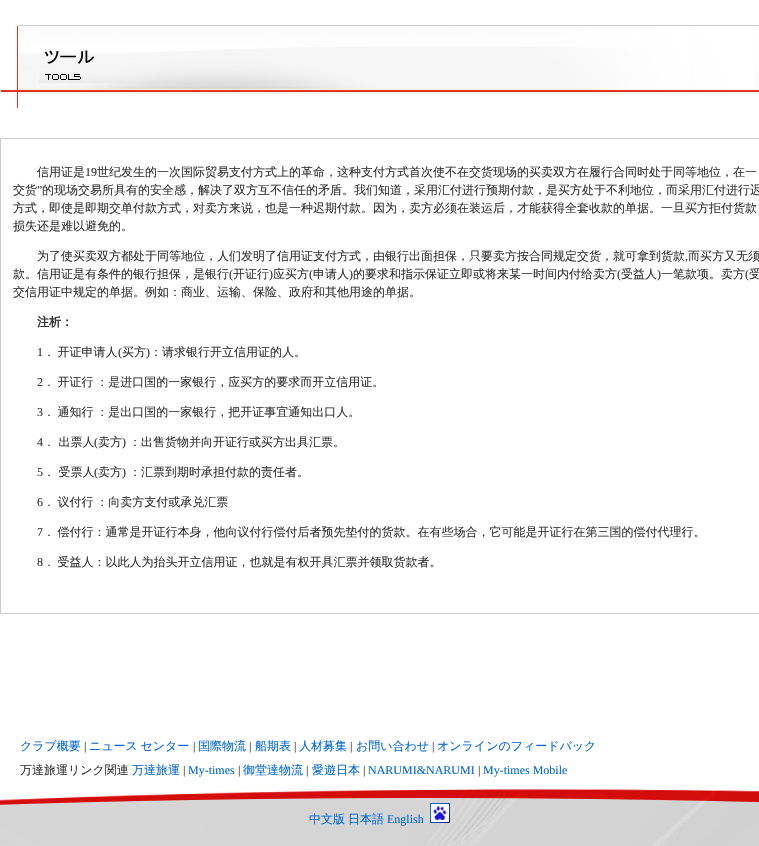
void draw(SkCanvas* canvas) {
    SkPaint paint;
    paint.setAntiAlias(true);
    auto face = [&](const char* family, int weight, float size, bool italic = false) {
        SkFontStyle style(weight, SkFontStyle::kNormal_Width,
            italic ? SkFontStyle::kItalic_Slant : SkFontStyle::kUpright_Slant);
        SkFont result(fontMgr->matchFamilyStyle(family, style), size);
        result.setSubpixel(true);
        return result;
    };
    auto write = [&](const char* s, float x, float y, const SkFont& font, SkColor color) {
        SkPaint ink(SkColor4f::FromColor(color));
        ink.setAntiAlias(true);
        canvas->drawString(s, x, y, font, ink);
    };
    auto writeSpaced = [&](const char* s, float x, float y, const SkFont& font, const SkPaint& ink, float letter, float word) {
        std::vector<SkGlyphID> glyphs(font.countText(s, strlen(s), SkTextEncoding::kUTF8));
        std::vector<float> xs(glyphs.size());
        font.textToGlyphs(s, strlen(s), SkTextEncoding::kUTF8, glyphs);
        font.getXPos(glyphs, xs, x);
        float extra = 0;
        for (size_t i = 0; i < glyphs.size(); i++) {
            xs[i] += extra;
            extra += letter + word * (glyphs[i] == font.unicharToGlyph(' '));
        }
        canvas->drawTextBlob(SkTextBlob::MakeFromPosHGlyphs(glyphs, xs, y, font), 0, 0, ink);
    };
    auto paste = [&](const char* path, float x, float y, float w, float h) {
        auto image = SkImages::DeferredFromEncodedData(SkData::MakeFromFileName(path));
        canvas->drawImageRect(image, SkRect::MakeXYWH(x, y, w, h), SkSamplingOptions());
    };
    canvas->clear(SK_ColorWHITE);
    paste("pic1.png", 1, 25, 758, 83);
    paint.setStyle(SkPaint::kStroke_Style);
    paint.setStrokeWidth(1);
    paint.setColor(SkColorSetRGB(204, 204, 204));
    canvas->drawRect(SkRect::MakeXYWH(0.5f, 138.5f, 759, 475), paint);
    auto kFont1 = face("WenQuanYi Zen Hei", 500, 12);
    write("信用证是", 37, 176, kFont1, SkColorSetRGB(51, 51, 51));
    auto kFont2 = face("Liberation Serif", 400, 12);
    write("19", 85, 176, kFont2, SkColorSetRGB(51, 51, 51));
    write("世纪发生的一次国际贸易支付方式上的革命，这种支付方式首次使不在交货现场的买卖双方在履行合同时处于同等地位，在一", 97, 176, kFont1, SkColorSetRGB(51, 51, 51));
    write("交货", 13, 194, kFont1, SkColorSetRGB(51, 51, 51));
    write("”", 37, 194, kFont2, SkColorSetRGB(51, 51, 51));
    write("的现场交易所具有的安全感，解决了双方互不信任的矛盾。我们知道，采用汇付进行预期付款，是买方处于不利地位，而采用汇付进行迟", 42, 194, kFont1, SkColorSetRGB(51, 51, 51));
    write("方式，即使是即期交单付款方式，对卖方来说，也是一种迟期付款。因为，卖方必须在装运后，才能获得全套收款的单据。一旦买方拒付货款", 13, 212, kFont1, SkColorSetRGB(51, 51, 51));
    write("损失还是难以避免的。", 13, 230, kFont1, SkColorSetRGB(51, 51, 51));
    write("为了使买卖双方都处于同等地位，人们发明了信用证支付方式，由银行出面担保，只要卖方按合同规定交货，就可拿到货款", 37, 260, kFont1, SkColorSetRGB(51, 51, 51));
    write(",", 685, 260, kFont2, SkColorSetRGB(51, 51, 51));
    write("而买方又无须", 688, 260, kFont1, SkColorSetRGB(51, 51, 51));
    write("款。信用证是有条件的银行担保，是银行", 13, 278, kFont1, SkColorSetRGB(51, 51, 51));
    write("(", 229, 278, kFont2, SkColorSetRGB(51, 51, 51));
    write("开证行", 233, 278, kFont1, SkColorSetRGB(51, 51, 51));
    write(")", 269, 278, kFont2, SkColorSetRGB(51, 51, 51));
    write("应买方", 273, 278, kFont1, SkColorSetRGB(51, 51, 51));
    write("(", 309, 278, kFont2, SkColorSetRGB(51, 51, 51));
    write("申请人", 313, 278, kFont1, SkColorSetRGB(51, 51, 51));
    write(")", 349, 278, kFont2, SkColorSetRGB(51, 51, 51));
    write("的要求和指示保证立即或将来某一时间内付给卖方", 353, 278, kFont1, SkColorSetRGB(51, 51, 51));
    write("(", 617, 278, kFont2, SkColorSetRGB(51, 51, 51));
    write("受益人", 621, 278, kFont1, SkColorSetRGB(51, 51, 51));
    write(")", 657, 278, kFont2, SkColorSetRGB(51, 51, 51));
    write("一笔款项。卖方", 661, 278, kFont1, SkColorSetRGB(51, 51, 51));
    write("(", 745, 278, kFont2, SkColorSetRGB(51, 51, 51));
    write("受", 749, 278, kFont1, SkColorSetRGB(51, 51, 51));
    write("交信用证中规定的单据。例如：商业、运输、保险、政府和其他用途的单据。", 13, 296, kFont1, SkColorSetRGB(51, 51, 51));
    auto kFont3 = face("WenQuanYi Zen Hei", 700, 12);
    write("注析：", 37, 326, kFont3, SkColorSetRGB(51, 51, 51));
    write("1", 37, 356, kFont2, SkColorSetRGB(51, 51, 51));
    paint.setStyle(SkPaint::kFill_Style);
    paint.setColor(SkColorSetRGB(51, 51, 51));
    writeSpaced("． 开证申请人", 43, 356, kFont1, paint, 0, -1);
    write("(", 118, 356, kFont2, SkColorSetRGB(51, 51, 51));
    write("买方", 122, 356, kFont1, SkColorSetRGB(51, 51, 51));
    write(")", 146, 356, kFont2, SkColorSetRGB(51, 51, 51));
    write("：请求银行开立信用证的人。", 150, 356, kFont1, SkColorSetRGB(51, 51, 51));
    write("2", 37, 386, kFont2, SkColorSetRGB(51, 51, 51));
    writeSpaced("． 开证行 ：是进口国的一家银行，应买方的要求而开立信用证。", 43, 386, kFont1, paint, 0, -1);
    write("3", 37, 416, kFont2, SkColorSetRGB(51, 51, 51));
    writeSpaced("． 通知行 ：是出口国的一家银行，把开证事宜通知出口人。", 43, 416, kFont1, paint, 0, -1);
    write("4", 37, 446, kFont2, SkColorSetRGB(51, 51, 51));
    write("． 出票人", 43, 446, kFont1, SkColorSetRGB(51, 51, 51));
    write("(", 94, 446, kFont2, SkColorSetRGB(51, 51, 51));
    write("卖方", 98, 446, kFont1, SkColorSetRGB(51, 51, 51));
    write(")", 122, 446, kFont2, SkColorSetRGB(51, 51, 51));
    write("：出售货物并向开证行或买方出具汇票。", 129, 446, kFont1, SkColorSetRGB(51, 51, 51));
    write("5", 37, 476, kFont2, SkColorSetRGB(51, 51, 51));
    write("． 受票人", 43, 476, kFont1, SkColorSetRGB(51, 51, 51));
    write("(", 94, 476, kFont2, SkColorSetRGB(51, 51, 51));
    write("卖方", 98, 476, kFont1, SkColorSetRGB(51, 51, 51));
    write(")", 122, 476, kFont2, SkColorSetRGB(51, 51, 51));
    write("：汇票到期时承担付款的责任者。", 129, 476, kFont1, SkColorSetRGB(51, 51, 51));
    write("6", 37, 506, kFont2, SkColorSetRGB(51, 51, 51));
    writeSpaced("． 议付行 ：向卖方支付或承兑汇票", 43, 506, kFont1, paint, 0, -1);
    write("7", 37, 536, kFont2, SkColorSetRGB(51, 51, 51));
    writeSpaced("． 偿付行：通常是开证行本身，他向议付行偿付后者预先垫付的货款。在有些场合，它可能是开证行在第三国的偿付代理行。", 43, 536, kFont1, paint, 0, -1);
    write("8", 37, 566, kFont2, SkColorSetRGB(51, 51, 51));
    writeSpaced("． 受益人：以此人为抬头开立信用证，也就是有权开具汇票并领取货款者。", 43, 566, kFont1, paint, 0, -1);
    write("クラブ概要", 20, 750, kFont1, SkColorSetRGB(0, 104, 221));
    write("|", 84, 750, kFont2, SkColorSetRGB(51, 51, 51));
    paint.setColor(SkColorSetRGB(0, 104, 221));
    writeSpaced("ニュース センター", 89, 750, kFont1, paint, 0, -1);
    write("|", 193, 750, kFont2, SkColorSetRGB(51, 51, 51));
    write("国際物流", 198, 750, kFont1, SkColorSetRGB(0, 104, 221));
    write("|", 249, 750, kFont2, SkColorSetRGB(51, 51, 51));
    write("船期表", 255, 750, kFont1, SkColorSetRGB(0, 104, 221));
    write("|", 294, 750, kFont2, SkColorSetRGB(51, 51, 51));
    write("人材募集", 299, 750, kFont1, SkColorSetRGB(0, 104, 221));
    write("|", 350, 750, kFont2, SkColorSetRGB(51, 51, 51));
    write("お問い合わせ", 356, 750, kFont1, SkColorSetRGB(0, 104, 221));
    write("|", 432, 750, kFont2, SkColorSetRGB(51, 51, 51));
    write("オンラインのフィードバック", 437, 750, kFont1, SkColorSetRGB(0, 104, 221));
    write("万達旅運リンク関連", 20, 774, kFont1, SkColorSetRGB(51, 51, 51));
    write("万達旅運", 132, 774, kFont1, SkColorSetRGB(0, 104, 221));
    write("|", 183, 774, kFont2, SkColorSetRGB(51, 51, 51));
    write("My-times", 188, 774, kFont2, SkColorSetRGB(0, 104, 221));
    write("|", 238, 774, kFont2, SkColorSetRGB(51, 51, 51));
    write("御堂達物流", 243, 774, kFont1, SkColorSetRGB(0, 104, 221));
    write("|", 306, 774, kFont2, SkColorSetRGB(51, 51, 51));
    write("愛遊日本", 312, 774, kFont1, SkColorSetRGB(0, 104, 221));
    write("|", 363, 774, kFont2, SkColorSetRGB(51, 51, 51));
    write("NARUMI&NARUMI", 368, 774, kFont2, SkColorSetRGB(0, 104, 221));
    write("|", 478, 774, kFont2, SkColorSetRGB(51, 51, 51));
    write("My-times Mobile", 483, 774, kFont2, SkColorSetRGB(0, 104, 221));
    paste("pic2.png", 0, 785, 759, 61);
    write("中文版", 309, 823, kFont1, SkColorSetRGB(0, 104, 221));
    write("日本語", 348, 823, kFont1, SkColorSetRGB(0, 104, 221));
    write("English", 387, 823, kFont2, SkColorSetRGB(0, 104, 221));
    paste("pic3.png", 430, 803, 20, 20);
}
